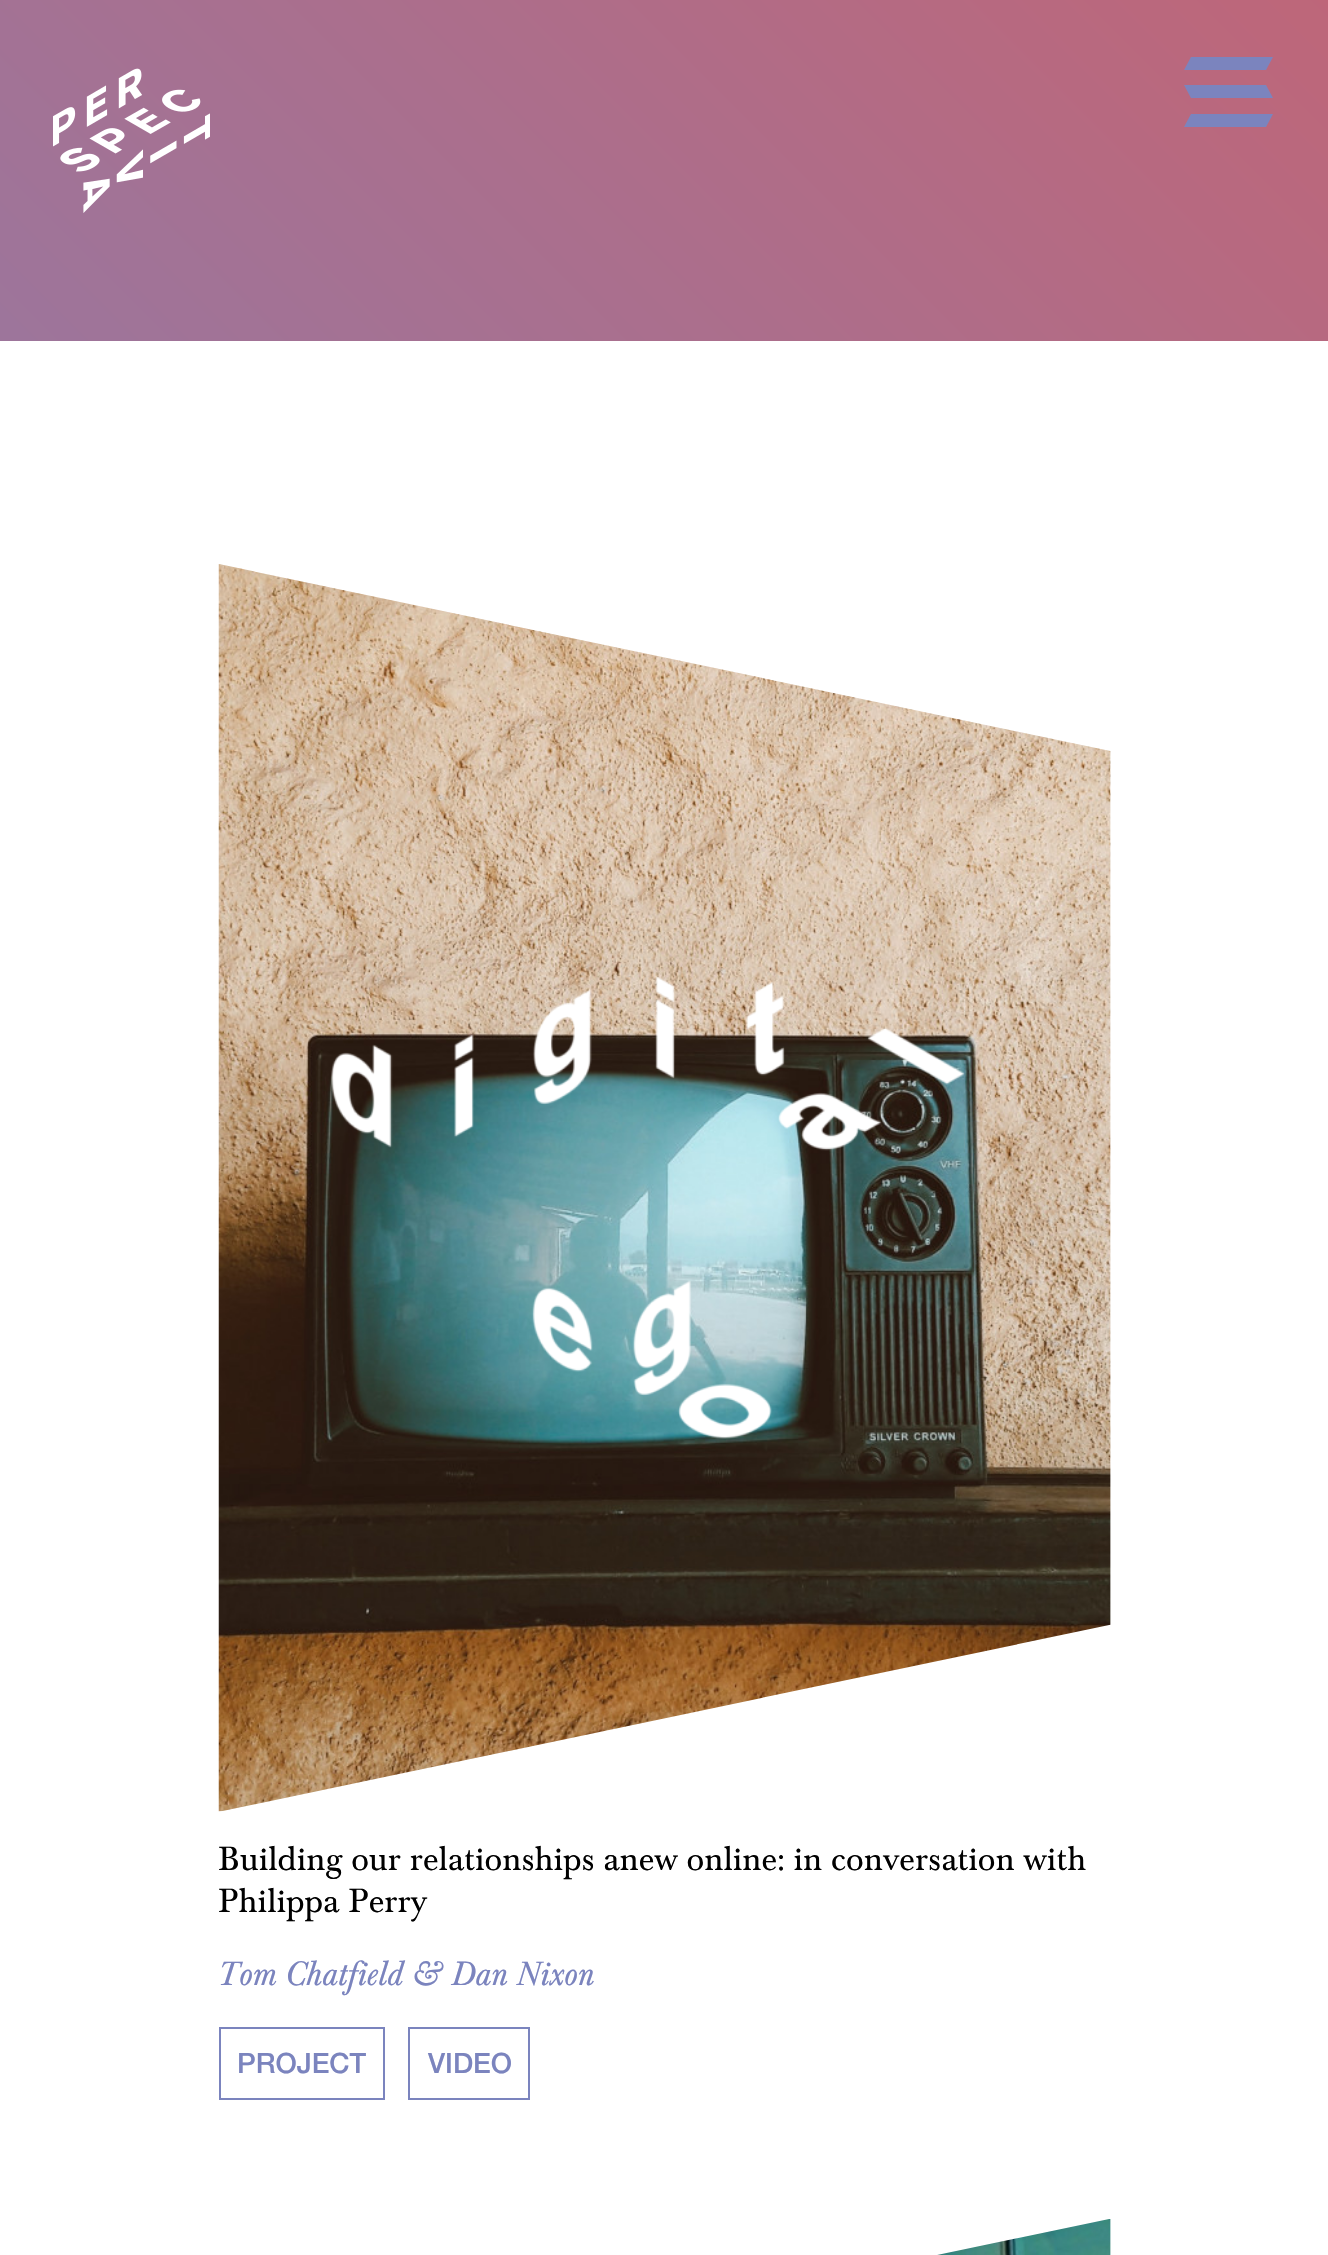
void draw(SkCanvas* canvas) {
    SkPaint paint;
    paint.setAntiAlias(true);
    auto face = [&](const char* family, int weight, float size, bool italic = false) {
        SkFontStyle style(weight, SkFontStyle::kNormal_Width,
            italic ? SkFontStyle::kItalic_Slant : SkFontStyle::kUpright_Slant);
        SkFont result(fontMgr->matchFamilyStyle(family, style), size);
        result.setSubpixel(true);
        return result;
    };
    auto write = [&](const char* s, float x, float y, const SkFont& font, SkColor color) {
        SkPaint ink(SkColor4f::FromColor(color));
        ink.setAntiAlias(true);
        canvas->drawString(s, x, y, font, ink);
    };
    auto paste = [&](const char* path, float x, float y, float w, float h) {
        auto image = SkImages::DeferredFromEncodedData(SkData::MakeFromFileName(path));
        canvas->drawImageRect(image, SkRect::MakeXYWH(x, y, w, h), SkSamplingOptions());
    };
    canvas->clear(SK_ColorWHITE);
    {
        const SkColor colors[] = {SkColorSetRGB(123, 132, 190), SkColorSetRGB(222, 88, 88), SkColorSetRGB(123, 132, 190)};
        const float stops[] = {0, 0.5f, 1};
        const SkPoint ends[] = {{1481, 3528}, {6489, -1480}};
        paint.setShader(SkGradientShader::MakeLinear(ends, colors, stops, 3, SkTileMode::kClamp));
        paint.setAlpha(255);
    }
    canvas->drawRect(SkRect::MakeXYWH(0, 0, 1328, 341), paint);
    paste("pic1.png", 53, 68, 157, 145);
    paint.setShader(nullptr);
    paint.setColor(SkColorSetRGB(123, 132, 190));
    canvas->drawPath(SkPathBuilder().moveTo(1266, 70).lineTo(1184, 70).lineTo(1191, 57).lineTo(1273, 57).close().moveTo(1266, 127).lineTo(1184, 127).lineTo(1191, 114).lineTo(1273, 114).close().moveTo(1266, 85).lineTo(1184, 85).lineTo(1191, 98).lineTo(1273, 98).close().detach(), paint);
    paste("pic2.png", 218, 564, 893, 1248);
    paste("pic3.png", 331, 976, 634, 463);
    auto kFont1 = face("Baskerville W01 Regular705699", 400, 35);
    write("Building our relationships anew online: in conversation with", 218, 1870, kFont1, SK_ColorBLACK);
    write("Philippa Perry", 218, 1912, kFont1, SK_ColorBLACK);
    auto kFont2 = face("Baskerville", 400, 35);
    write("Tom Chatfield & Dan Nixon", 218, 1985, kFont2, SkColorSetRGB(123, 132, 190));
    paint.setStyle(SkPaint::kStroke_Style);
    paint.setStrokeWidth(2);
    canvas->drawRect(SkRect::MakeXYWH(220, 2028, 164, 71), paint);
    auto kFont3 = face("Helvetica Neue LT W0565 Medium", 500, 28);
    write("PROJECT", 237, 2073, kFont3, SkColorSetRGB(123, 132, 190));
    canvas->drawRect(SkRect::MakeXYWH(409, 2028, 120, 71), paint);
    write("VIDEO", 428, 2073, kFont3, SkColorSetRGB(123, 132, 190));
    paste("pic4.png", 937, 2219, 174, 36);
}
